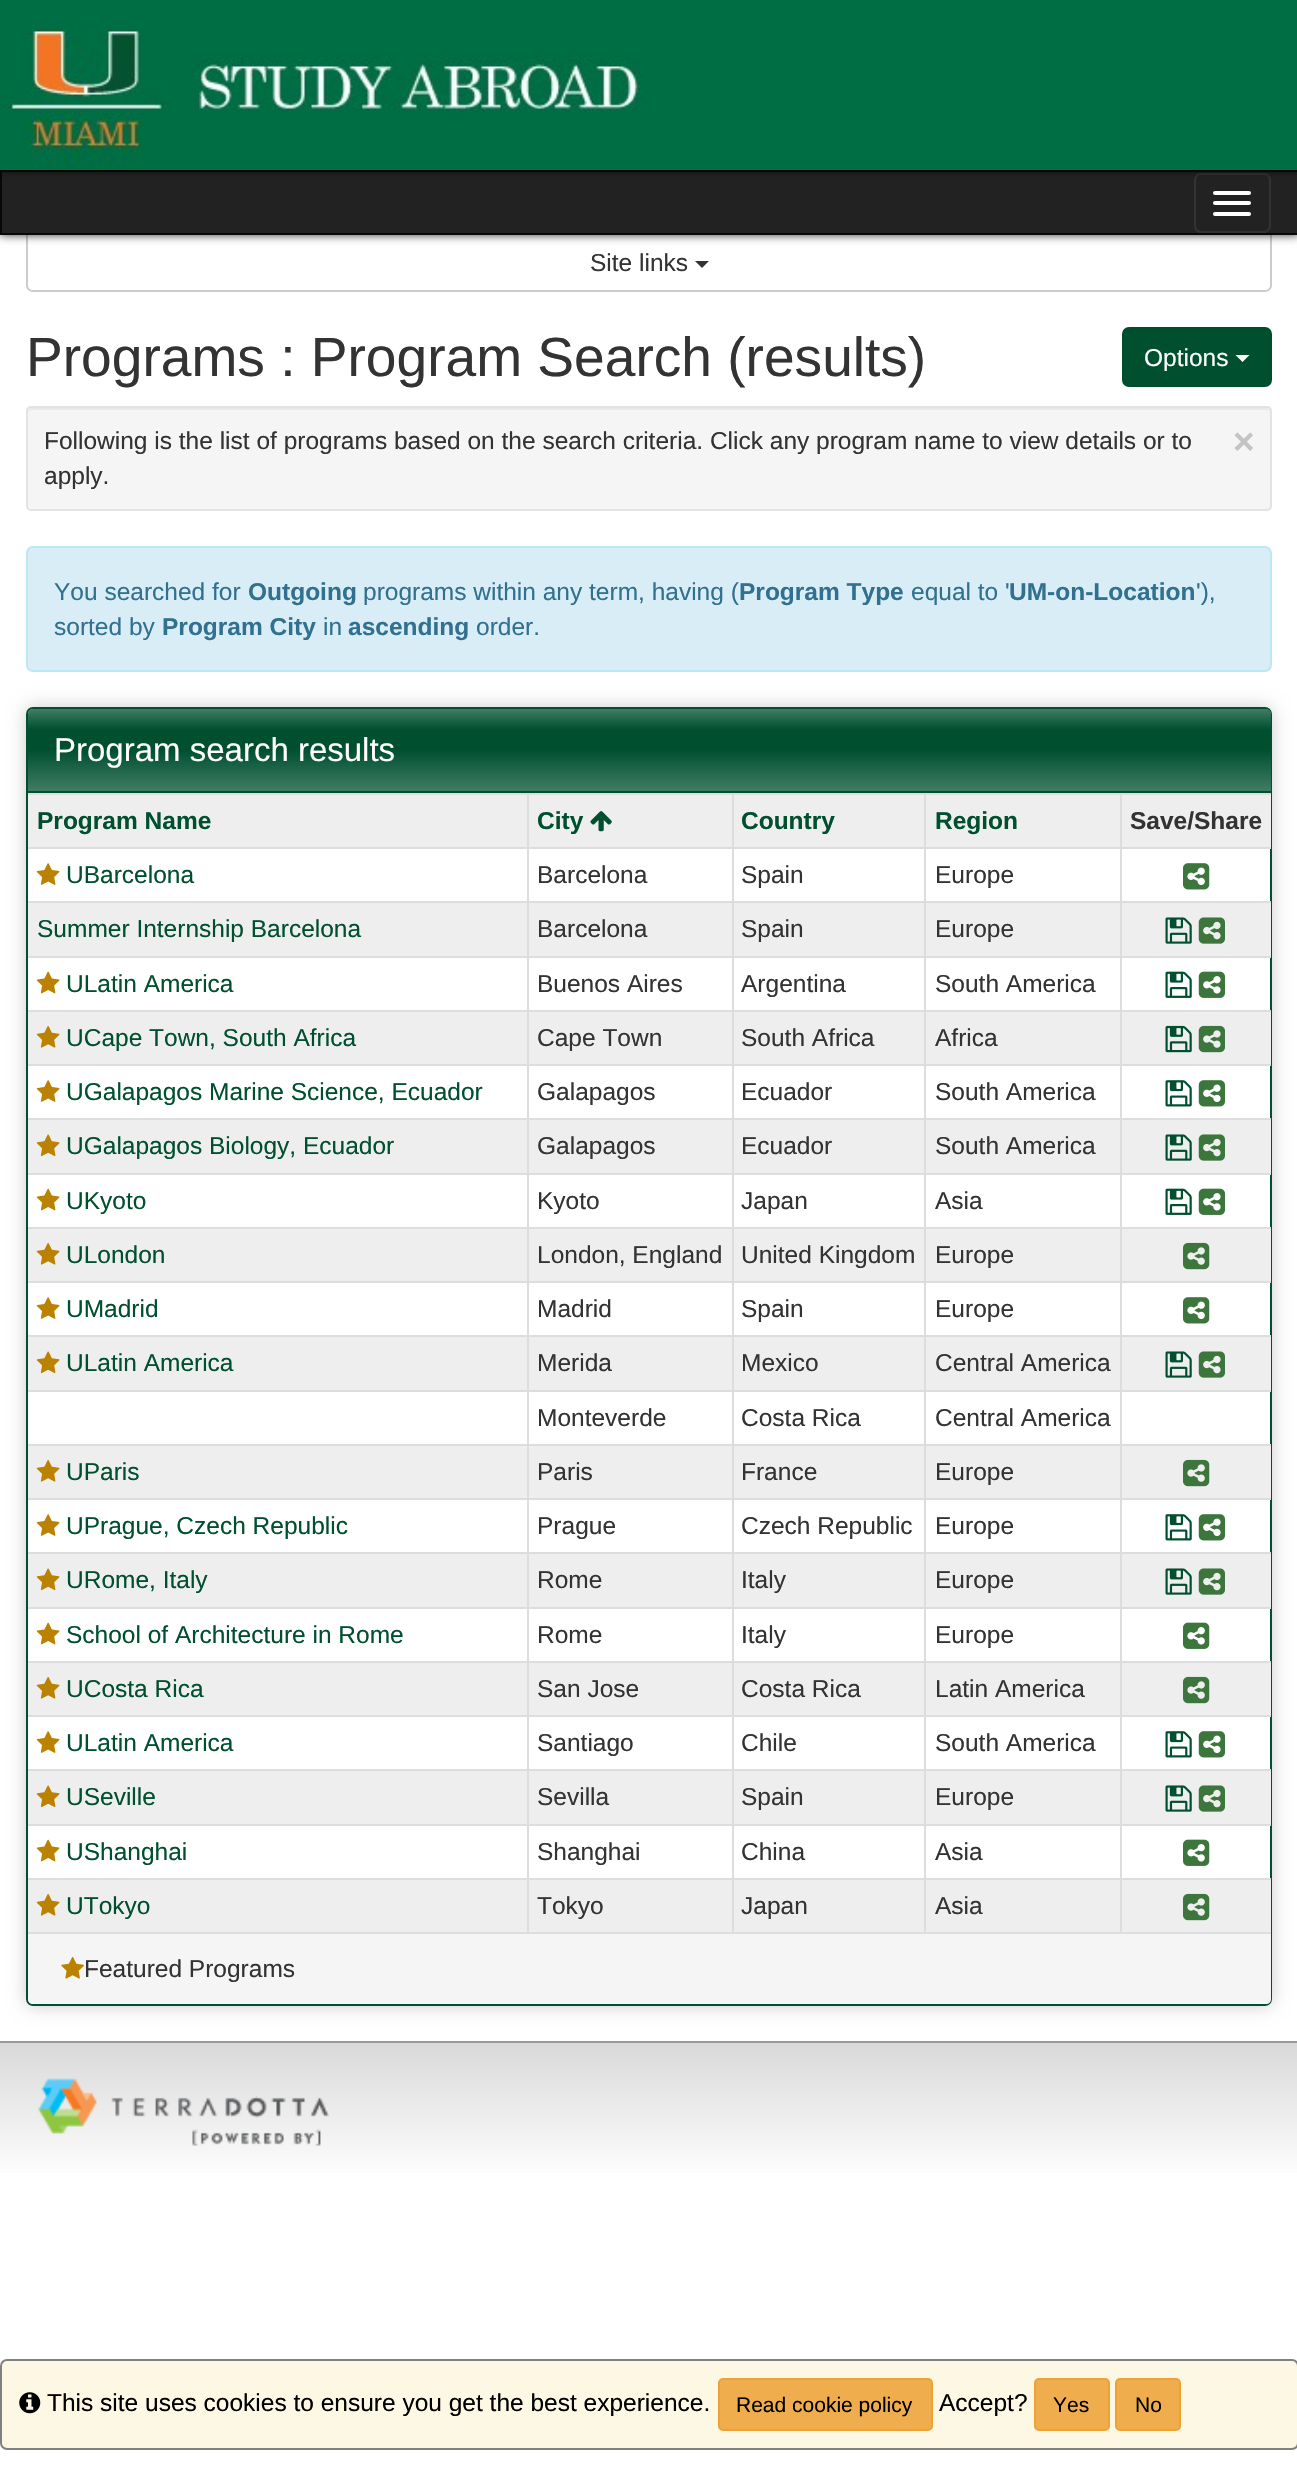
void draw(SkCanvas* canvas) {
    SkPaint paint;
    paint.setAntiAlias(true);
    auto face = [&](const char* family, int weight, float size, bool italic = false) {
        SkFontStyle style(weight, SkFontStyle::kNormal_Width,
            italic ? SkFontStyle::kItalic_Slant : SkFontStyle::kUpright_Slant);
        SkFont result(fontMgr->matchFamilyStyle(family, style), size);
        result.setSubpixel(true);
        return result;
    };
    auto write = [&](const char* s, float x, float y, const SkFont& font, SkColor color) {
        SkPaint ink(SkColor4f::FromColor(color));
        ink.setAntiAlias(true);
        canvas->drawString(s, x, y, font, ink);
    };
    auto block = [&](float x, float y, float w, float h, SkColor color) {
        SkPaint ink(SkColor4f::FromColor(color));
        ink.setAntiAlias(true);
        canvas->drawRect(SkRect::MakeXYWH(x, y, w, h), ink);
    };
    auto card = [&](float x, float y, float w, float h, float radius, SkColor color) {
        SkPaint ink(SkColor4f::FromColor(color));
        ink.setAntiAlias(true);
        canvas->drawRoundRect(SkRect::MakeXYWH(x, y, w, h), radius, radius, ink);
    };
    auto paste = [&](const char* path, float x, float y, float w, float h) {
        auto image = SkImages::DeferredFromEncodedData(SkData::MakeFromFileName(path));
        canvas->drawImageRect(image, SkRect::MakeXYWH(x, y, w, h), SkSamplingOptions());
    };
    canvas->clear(SK_ColorWHITE);
    paint.setColor(SkColorSetRGB(204, 204, 204));
    canvas->drawPath(SkPathBuilder(SkPathFillType::kEvenOdd).moveTo(26, 234).lineTo(1272, 234).lineTo(1272, 285).cubicTo(1272, 289, 1269, 292, 1265, 292).lineTo(33, 292).cubicTo(29, 292, 26, 289, 26, 285).close().moveTo(28, 234).lineTo(1270, 234).lineTo(1270, 285).cubicTo(1270, 288, 1268, 290, 1265, 290).lineTo(33, 290).cubicTo(30, 290, 28, 288, 28, 285).close().detach(), paint);
    paint.setColor(SkColorSetARGB(204, 0, 0, 0));
    paint.setMaskFilter(SkMaskFilter::MakeBlur(kNormal_SkBlurStyle, 4.5f));
    canvas->drawRect(SkRect::MakeXYWH(0, 170, 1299, 65), paint);
    paint.setMaskFilter(nullptr);
    paint.setColor(SkColorSetRGB(34, 34, 34));
    canvas->drawRect(SkRect::MakeXYWH(1, 171, 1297, 63), paint);
    paint.setStyle(SkPaint::kStroke_Style);
    paint.setStrokeWidth(2);
    paint.setColor(SkColorSetRGB(8, 8, 8));
    canvas->drawRect(SkRect::MakeXYWH(1, 171, 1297, 63), paint);
    paint.setColor(SkColorSetRGB(51, 51, 51));
    canvas->drawRoundRect(SkRect::MakeXYWH(1195, 174, 75, 58), 6, 6, paint);
    paint.setStyle(SkPaint::kFill_Style);
    paint.setColor(SkColorSetARGB(204, 0, 0, 0));
    paint.setMaskFilter(SkMaskFilter::MakeBlur(kNormal_SkBlurStyle, 4.5f));
    canvas->drawRect(SkRect::MakeXYWH(0, 0, 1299, 170), paint);
    paint.setMaskFilter(nullptr);
    block(0, 0, 1297, 170, SkColorSetRGB(0, 110, 68));
    paste("pic1.png", 0, 28, 643, 140);
    card(1213, 191, 38, 4, 2, SK_ColorWHITE);
    card(1213, 201, 38, 4, 2, SK_ColorWHITE);
    card(1213, 212, 38, 4, 2, SK_ColorWHITE);
    auto kFont1 = face("Liberation Sans", 400, 24.5f);
    write("Site links", 590, 271, kFont1, SkColorSetRGB(51, 51, 51));
    paint.setColor(SkColorSetRGB(51, 51, 51));
    canvas->drawPath(SkPathBuilder().moveTo(695, 261).lineTo(709, 261).lineTo(702, 268).close().detach(), paint);
    auto kFont2 = face("Liberation Sans", 400, 55.1f);
    write("Programs : Program Search (results)", 26, 376, kFont2, SkColorSetRGB(51, 51, 51));
    paint.setColor(SkColorSetRGB(0, 80, 48));
    canvas->drawRoundRect(SkRect::MakeXYWH(1123, 328, 148, 58), 6, 6, paint);
    paint.setStyle(SkPaint::kStroke_Style);
    paint.setColor(SkColorSetRGB(0, 76, 46));
    canvas->drawRoundRect(SkRect::MakeXYWH(1123, 328, 148, 58), 6, 6, paint);
    write("Options", 1144, 366, kFont1, SK_ColorWHITE);
    paint.setStyle(SkPaint::kFill_Style);
    paint.setColor(SK_ColorWHITE);
    canvas->drawPath(SkPathBuilder().moveTo(1235.5f, 355).lineTo(1249.5f, 355).lineTo(1242.5f, 362).close().detach(), paint);
    card(26, 406, 1246, 105, 5, SkColorSetRGB(245, 245, 245));
    paint.setColor(SkColorSetRGB(233, 233, 233));
    canvas->drawPath(SkPathBuilder().moveTo(32, 410).lineTo(1267, 410).cubicTo(1269, 410, 1270, 411, 1270, 413).lineTo(1270, 508).cubicTo(1271, 507, 1271, 506, 1271, 505).lineTo(1271, 412).cubicTo(1271, 410, 1269, 408, 1267, 408).lineTo(32, 408).cubicTo(30, 408, 28, 410, 28, 412).lineTo(28, 413).cubicTo(28, 411, 30, 410, 32, 410).close().detach(), paint);
    paint.setStyle(SkPaint::kStroke_Style);
    paint.setColor(SkColorSetRGB(227, 227, 227));
    canvas->drawRoundRect(SkRect::MakeXYWH(27, 407, 1244, 103), 4, 4, paint);
    write("Following is the list of programs based on the search criteria. Click any program name to view details or to", 44, 449, kFont1, SkColorSetRGB(51, 51, 51));
    auto kFont3 = face("Liberation Sans", 700, 37);
    write("×", 1233, 454, kFont3, SkColorSetRGB(196, 196, 196));
    write("apply.", 44, 484, kFont1, SkColorSetRGB(51, 51, 51));
    paint.setStyle(SkPaint::kFill_Style);
    paint.setColor(SkColorSetRGB(217, 237, 247));
    canvas->drawRoundRect(SkRect::MakeXYWH(27, 547, 1244, 124), 6, 6, paint);
    paint.setStyle(SkPaint::kStroke_Style);
    paint.setColor(SkColorSetRGB(188, 232, 241));
    canvas->drawRoundRect(SkRect::MakeXYWH(27, 547, 1244, 124), 6, 6, paint);
    write("You searched for", 54, 600, kFont1, SkColorSetRGB(49, 112, 143));
    auto kFont4 = face("Liberation Sans", 700, 24.5f);
    write("Outgoing", 248, 600, kFont4, SkColorSetRGB(49, 112, 143));
    write("programs within any term, having (", 363, 600, kFont1, SkColorSetRGB(49, 112, 143));
    write("Program Type", 739, 600, kFont4, SkColorSetRGB(49, 112, 143));
    write("equal to '", 911, 600, kFont1, SkColorSetRGB(49, 112, 143));
    write("UM-on-Location", 1009, 600, kFont4, SkColorSetRGB(49, 112, 143));
    write("'),", 1196, 600, kFont1, SkColorSetRGB(49, 112, 143));
    write("sorted by", 54, 635, kFont1, SkColorSetRGB(49, 112, 143));
    write("Program City", 162, 635, kFont4, SkColorSetRGB(49, 112, 143));
    write("in", 323, 635, kFont1, SkColorSetRGB(49, 112, 143));
    write("ascending", 348, 635, kFont4, SkColorSetRGB(49, 112, 143));
    write("order.", 476, 635, kFont1, SkColorSetRGB(49, 112, 143));
    paint.setStyle(SkPaint::kFill_Style);
    paint.setColor(SkColorSetARGB(51, 0, 0, 0));
    paint.setMaskFilter(SkMaskFilter::MakeBlur(kNormal_SkBlurStyle, 9));
    canvas->drawRoundRect(SkRect::MakeXYWH(26, 707, 1246, 1299), 7, 7, paint);
    paint.setMaskFilter(nullptr);
    paint.setColor(SK_ColorWHITE);
    canvas->drawRoundRect(SkRect::MakeXYWH(27, 708, 1244, 1297), 6, 6, paint);
    paint.setStyle(SkPaint::kStroke_Style);
    paint.setColor(SkColorSetRGB(0, 80, 48));
    canvas->drawRoundRect(SkRect::MakeXYWH(27, 708, 1244, 1297), 6, 6, paint);
    paint.setStyle(SkPaint::kFill_Style);
    canvas->drawPath(SkPathBuilder().moveTo(33, 709).lineTo(1266, 709).cubicTo(1269, 709, 1271, 711, 1271, 714).lineTo(1271, 793).lineTo(28, 793).lineTo(28, 714).cubicTo(28, 711, 30, 709, 33, 709).close().detach(), paint);
    {
        const SkColor colors[] = {SkColorSetARGB(64, 255, 255, 255), SkColorSetARGB(0, 255, 255, 255), SkColorSetARGB(0, 255, 255, 255), SkColorSetARGB(64, 255, 255, 255)};
        const float stops[] = {0, 0.25f, 0.5f, 1};
        const SkPoint ends[] = {{649, 709}, {649, 791}};
        paint.setShader(SkGradientShader::MakeLinear(ends, colors, stops, 4, SkTileMode::kClamp));
        paint.setAlpha(255);
    }
    canvas->drawPath(SkPathBuilder().moveTo(33, 709).lineTo(1266, 709).cubicTo(1269, 709, 1271, 711, 1271, 714).lineTo(1271, 791).lineTo(28, 791).lineTo(28, 714).cubicTo(28, 711, 30, 709, 33, 709).close().detach(), paint);
    auto kFont5 = face("Liberation Sans", 400, 33);
    write("Program search results", 54, 761, kFont5, SK_ColorWHITE);
    block(28, 795, 1243, 52, SkColorSetRGB(238, 238, 238));
    block(1120, 793, 151, 2, SkColorSetRGB(221, 221, 221));
    block(1120, 847, 151, 2, SkColorSetRGB(221, 221, 221));
    block(1120, 901, 151, 2, SkColorSetRGB(221, 221, 221));
    block(28, 903, 1243, 53, SkColorSetRGB(238, 238, 238));
    block(1120, 956, 151, 2, SkColorSetRGB(221, 221, 221));
    block(1120, 1010, 151, 2, SkColorSetRGB(221, 221, 221));
    block(28, 1012, 1243, 52, SkColorSetRGB(238, 238, 238));
    block(1120, 1064, 151, 2, SkColorSetRGB(221, 221, 221));
    block(1120, 1118, 151, 2, SkColorSetRGB(221, 221, 221));
    block(28, 1120, 1243, 53, SkColorSetRGB(238, 238, 238));
    block(1120, 1173, 151, 2, SkColorSetRGB(221, 221, 221));
    block(1120, 1227, 151, 2, SkColorSetRGB(221, 221, 221));
    block(28, 1229, 1243, 52, SkColorSetRGB(238, 238, 238));
    block(1120, 1281, 151, 2, SkColorSetRGB(221, 221, 221));
    block(1120, 1335, 151, 2, SkColorSetRGB(221, 221, 221));
    block(28, 1337, 1243, 53, SkColorSetRGB(238, 238, 238));
    block(1120, 1390, 151, 2, SkColorSetRGB(221, 221, 221));
    block(1120, 1444, 151, 2, SkColorSetRGB(221, 221, 221));
    block(28, 1446, 1243, 52, SkColorSetRGB(238, 238, 238));
    block(1120, 1498, 151, 2, SkColorSetRGB(221, 221, 221));
    block(1120, 1552, 151, 2, SkColorSetRGB(221, 221, 221));
    block(28, 1554, 1243, 53, SkColorSetRGB(238, 238, 238));
    block(1120, 1607, 151, 2, SkColorSetRGB(221, 221, 221));
    block(1120, 1661, 151, 2, SkColorSetRGB(221, 221, 221));
    block(28, 1663, 1243, 52, SkColorSetRGB(238, 238, 238));
    block(1120, 1715, 151, 2, SkColorSetRGB(221, 221, 221));
    block(1120, 1769, 151, 2, SkColorSetRGB(221, 221, 221));
    block(28, 1771, 1243, 53, SkColorSetRGB(238, 238, 238));
    block(1120, 1824, 151, 2, SkColorSetRGB(221, 221, 221));
    block(1120, 1878, 151, 2, SkColorSetRGB(221, 221, 221));
    block(28, 1880, 1243, 52, SkColorSetRGB(238, 238, 238));
    block(1120, 1878, 2, 54, SkColorSetRGB(221, 221, 221));
    block(924, 1878, 198, 2, SkColorSetRGB(221, 221, 221));
    block(1120, 1824, 2, 56, SkColorSetRGB(221, 221, 221));
    block(924, 1824, 198, 2, SkColorSetRGB(221, 221, 221));
    block(1120, 1769, 2, 56, SkColorSetRGB(221, 221, 221));
    block(924, 1769, 198, 2, SkColorSetRGB(221, 221, 221));
    block(1120, 1715, 2, 56, SkColorSetRGB(221, 221, 221));
    block(924, 1715, 198, 2, SkColorSetRGB(221, 221, 221));
    block(1120, 1661, 2, 56, SkColorSetRGB(221, 221, 221));
    block(924, 1661, 198, 2, SkColorSetRGB(221, 221, 221));
    block(1120, 1607, 2, 56, SkColorSetRGB(221, 221, 221));
    block(924, 1607, 198, 2, SkColorSetRGB(221, 221, 221));
    block(1120, 1552, 2, 56, SkColorSetRGB(221, 221, 221));
    block(924, 1552, 198, 2, SkColorSetRGB(221, 221, 221));
    block(1120, 1498, 2, 56, SkColorSetRGB(221, 221, 221));
    block(924, 1498, 198, 2, SkColorSetRGB(221, 221, 221));
    block(1120, 1444, 2, 56, SkColorSetRGB(221, 221, 221));
    block(924, 1444, 198, 2, SkColorSetRGB(221, 221, 221));
    block(1120, 1390, 2, 56, SkColorSetRGB(221, 221, 221));
    block(924, 1390, 198, 2, SkColorSetRGB(221, 221, 221));
    block(1120, 1335, 2, 56, SkColorSetRGB(221, 221, 221));
    block(924, 1335, 198, 2, SkColorSetRGB(221, 221, 221));
    block(1120, 1281, 2, 56, SkColorSetRGB(221, 221, 221));
    block(924, 1281, 198, 2, SkColorSetRGB(221, 221, 221));
    block(1120, 1227, 2, 56, SkColorSetRGB(221, 221, 221));
    block(924, 1227, 198, 2, SkColorSetRGB(221, 221, 221));
    block(1120, 1173, 2, 56, SkColorSetRGB(221, 221, 221));
    block(924, 1173, 198, 2, SkColorSetRGB(221, 221, 221));
    block(1120, 1118, 2, 56, SkColorSetRGB(221, 221, 221));
    block(924, 1118, 198, 2, SkColorSetRGB(221, 221, 221));
    block(1120, 1064, 2, 56, SkColorSetRGB(221, 221, 221));
    block(924, 1064, 198, 2, SkColorSetRGB(221, 221, 221));
    block(1120, 1010, 2, 56, SkColorSetRGB(221, 221, 221));
    block(924, 1010, 198, 2, SkColorSetRGB(221, 221, 221));
    block(1120, 956, 2, 56, SkColorSetRGB(221, 221, 221));
    block(924, 956, 198, 2, SkColorSetRGB(221, 221, 221));
    block(1120, 901, 2, 56, SkColorSetRGB(221, 221, 221));
    block(924, 901, 198, 2, SkColorSetRGB(221, 221, 221));
    block(1120, 847, 2, 56, SkColorSetRGB(221, 221, 221));
    block(924, 847, 198, 2, SkColorSetRGB(221, 221, 221));
    block(1120, 793, 2, 56, SkColorSetRGB(221, 221, 221));
    block(924, 793, 198, 2, SkColorSetRGB(221, 221, 221));
    block(924, 1878, 2, 54, SkColorSetRGB(221, 221, 221));
    block(732, 1878, 194, 2, SkColorSetRGB(221, 221, 221));
    block(924, 1824, 2, 56, SkColorSetRGB(221, 221, 221));
    block(732, 1824, 194, 2, SkColorSetRGB(221, 221, 221));
    block(924, 1769, 2, 56, SkColorSetRGB(221, 221, 221));
    block(732, 1769, 194, 2, SkColorSetRGB(221, 221, 221));
    block(924, 1715, 2, 56, SkColorSetRGB(221, 221, 221));
    block(732, 1715, 194, 2, SkColorSetRGB(221, 221, 221));
    block(924, 1661, 2, 56, SkColorSetRGB(221, 221, 221));
    block(732, 1661, 194, 2, SkColorSetRGB(221, 221, 221));
    block(924, 1607, 2, 56, SkColorSetRGB(221, 221, 221));
    block(732, 1607, 194, 2, SkColorSetRGB(221, 221, 221));
    block(924, 1552, 2, 56, SkColorSetRGB(221, 221, 221));
    block(732, 1552, 194, 2, SkColorSetRGB(221, 221, 221));
    block(924, 1498, 2, 56, SkColorSetRGB(221, 221, 221));
    block(732, 1498, 194, 2, SkColorSetRGB(221, 221, 221));
    block(924, 1444, 2, 56, SkColorSetRGB(221, 221, 221));
    block(732, 1444, 194, 2, SkColorSetRGB(221, 221, 221));
    block(924, 1390, 2, 56, SkColorSetRGB(221, 221, 221));
    block(732, 1390, 194, 2, SkColorSetRGB(221, 221, 221));
    block(924, 1335, 2, 56, SkColorSetRGB(221, 221, 221));
    block(732, 1335, 194, 2, SkColorSetRGB(221, 221, 221));
    block(924, 1281, 2, 56, SkColorSetRGB(221, 221, 221));
    block(732, 1281, 194, 2, SkColorSetRGB(221, 221, 221));
    block(924, 1227, 2, 56, SkColorSetRGB(221, 221, 221));
    block(732, 1227, 194, 2, SkColorSetRGB(221, 221, 221));
    block(924, 1173, 2, 56, SkColorSetRGB(221, 221, 221));
    block(732, 1173, 194, 2, SkColorSetRGB(221, 221, 221));
    block(924, 1118, 2, 56, SkColorSetRGB(221, 221, 221));
    block(732, 1118, 194, 2, SkColorSetRGB(221, 221, 221));
    block(924, 1064, 2, 56, SkColorSetRGB(221, 221, 221));
    block(732, 1064, 194, 2, SkColorSetRGB(221, 221, 221));
    block(924, 1010, 2, 56, SkColorSetRGB(221, 221, 221));
    block(732, 1010, 194, 2, SkColorSetRGB(221, 221, 221));
    block(924, 956, 2, 56, SkColorSetRGB(221, 221, 221));
    block(732, 956, 194, 2, SkColorSetRGB(221, 221, 221));
    block(924, 901, 2, 56, SkColorSetRGB(221, 221, 221));
    block(732, 901, 194, 2, SkColorSetRGB(221, 221, 221));
    block(924, 847, 2, 56, SkColorSetRGB(221, 221, 221));
    block(732, 847, 194, 2, SkColorSetRGB(221, 221, 221));
    block(924, 793, 2, 56, SkColorSetRGB(221, 221, 221));
    block(732, 793, 194, 2, SkColorSetRGB(221, 221, 221));
    block(732, 1878, 2, 54, SkColorSetRGB(221, 221, 221));
    block(527, 1878, 206, 2, SkColorSetRGB(221, 221, 221));
    block(732, 1824, 2, 56, SkColorSetRGB(221, 221, 221));
    block(527, 1824, 206, 2, SkColorSetRGB(221, 221, 221));
    block(732, 1769, 2, 56, SkColorSetRGB(221, 221, 221));
    block(527, 1769, 206, 2, SkColorSetRGB(221, 221, 221));
    block(732, 1715, 2, 56, SkColorSetRGB(221, 221, 221));
    block(527, 1715, 206, 2, SkColorSetRGB(221, 221, 221));
    block(732, 1661, 2, 56, SkColorSetRGB(221, 221, 221));
    block(527, 1661, 206, 2, SkColorSetRGB(221, 221, 221));
    block(732, 1607, 2, 56, SkColorSetRGB(221, 221, 221));
    block(527, 1607, 206, 2, SkColorSetRGB(221, 221, 221));
    block(732, 1552, 2, 56, SkColorSetRGB(221, 221, 221));
    block(527, 1552, 206, 2, SkColorSetRGB(221, 221, 221));
    block(732, 1498, 2, 56, SkColorSetRGB(221, 221, 221));
    block(527, 1498, 206, 2, SkColorSetRGB(221, 221, 221));
    block(732, 1444, 2, 56, SkColorSetRGB(221, 221, 221));
    block(527, 1444, 206, 2, SkColorSetRGB(221, 221, 221));
    block(732, 1390, 2, 56, SkColorSetRGB(221, 221, 221));
    block(527, 1390, 206, 2, SkColorSetRGB(221, 221, 221));
    block(732, 1335, 2, 56, SkColorSetRGB(221, 221, 221));
    block(527, 1335, 206, 2, SkColorSetRGB(221, 221, 221));
    block(732, 1281, 2, 56, SkColorSetRGB(221, 221, 221));
    block(527, 1281, 206, 2, SkColorSetRGB(221, 221, 221));
    block(732, 1227, 2, 56, SkColorSetRGB(221, 221, 221));
    block(527, 1227, 206, 2, SkColorSetRGB(221, 221, 221));
    block(732, 1173, 2, 56, SkColorSetRGB(221, 221, 221));
    block(527, 1173, 206, 2, SkColorSetRGB(221, 221, 221));
    block(732, 1118, 2, 56, SkColorSetRGB(221, 221, 221));
    block(527, 1118, 206, 2, SkColorSetRGB(221, 221, 221));
    block(732, 1064, 2, 56, SkColorSetRGB(221, 221, 221));
    block(527, 1064, 206, 2, SkColorSetRGB(221, 221, 221));
    block(732, 1010, 2, 56, SkColorSetRGB(221, 221, 221));
    block(527, 1010, 206, 2, SkColorSetRGB(221, 221, 221));
    block(732, 956, 2, 56, SkColorSetRGB(221, 221, 221));
    block(527, 956, 206, 2, SkColorSetRGB(221, 221, 221));
    block(732, 901, 2, 56, SkColorSetRGB(221, 221, 221));
    block(527, 901, 206, 2, SkColorSetRGB(221, 221, 221));
    block(732, 847, 2, 56, SkColorSetRGB(221, 221, 221));
    block(527, 847, 206, 2, SkColorSetRGB(221, 221, 221));
    block(732, 793, 2, 56, SkColorSetRGB(221, 221, 221));
    block(527, 793, 206, 2, SkColorSetRGB(221, 221, 221));
    block(527, 1878, 2, 54, SkColorSetRGB(221, 221, 221));
    block(28, 1878, 501, 2, SkColorSetRGB(221, 221, 221));
    block(527, 1824, 2, 56, SkColorSetRGB(221, 221, 221));
    block(28, 1824, 501, 2, SkColorSetRGB(221, 221, 221));
    block(527, 1769, 2, 56, SkColorSetRGB(221, 221, 221));
    block(28, 1769, 501, 2, SkColorSetRGB(221, 221, 221));
    block(527, 1715, 2, 56, SkColorSetRGB(221, 221, 221));
    block(28, 1715, 501, 2, SkColorSetRGB(221, 221, 221));
    block(527, 1661, 2, 56, SkColorSetRGB(221, 221, 221));
    block(28, 1661, 501, 2, SkColorSetRGB(221, 221, 221));
    block(527, 1607, 2, 56, SkColorSetRGB(221, 221, 221));
    block(28, 1607, 501, 2, SkColorSetRGB(221, 221, 221));
    block(527, 1552, 2, 56, SkColorSetRGB(221, 221, 221));
    block(28, 1552, 501, 2, SkColorSetRGB(221, 221, 221));
    block(527, 1498, 2, 56, SkColorSetRGB(221, 221, 221));
    block(28, 1498, 501, 2, SkColorSetRGB(221, 221, 221));
    block(527, 1444, 2, 56, SkColorSetRGB(221, 221, 221));
    block(28, 1444, 501, 2, SkColorSetRGB(221, 221, 221));
    block(527, 1390, 2, 56, SkColorSetRGB(221, 221, 221));
    block(28, 1390, 501, 2, SkColorSetRGB(221, 221, 221));
    block(527, 1335, 2, 56, SkColorSetRGB(221, 221, 221));
    block(28, 1335, 501, 2, SkColorSetRGB(221, 221, 221));
    block(527, 1281, 2, 56, SkColorSetRGB(221, 221, 221));
    block(28, 1281, 501, 2, SkColorSetRGB(221, 221, 221));
    block(527, 1227, 2, 56, SkColorSetRGB(221, 221, 221));
    block(28, 1227, 501, 2, SkColorSetRGB(221, 221, 221));
    block(527, 1173, 2, 56, SkColorSetRGB(221, 221, 221));
    block(28, 1173, 501, 2, SkColorSetRGB(221, 221, 221));
    block(527, 1118, 2, 56, SkColorSetRGB(221, 221, 221));
    block(28, 1118, 501, 2, SkColorSetRGB(221, 221, 221));
    block(527, 1064, 2, 56, SkColorSetRGB(221, 221, 221));
    block(28, 1064, 501, 2, SkColorSetRGB(221, 221, 221));
    block(527, 1010, 2, 56, SkColorSetRGB(221, 221, 221));
    block(28, 1010, 501, 2, SkColorSetRGB(221, 221, 221));
    block(527, 956, 2, 56, SkColorSetRGB(221, 221, 221));
    block(28, 956, 501, 2, SkColorSetRGB(221, 221, 221));
    block(527, 901, 2, 56, SkColorSetRGB(221, 221, 221));
    block(28, 901, 501, 2, SkColorSetRGB(221, 221, 221));
    block(527, 847, 2, 56, SkColorSetRGB(221, 221, 221));
    block(28, 847, 501, 2, SkColorSetRGB(221, 221, 221));
    block(527, 793, 2, 56, SkColorSetRGB(221, 221, 221));
    block(28, 793, 501, 2, SkColorSetRGB(221, 221, 221));
    write("Program Name", 37, 829, kFont4, SkColorSetRGB(0, 80, 48));
    write("City", 537, 829, kFont4, SkColorSetRGB(0, 80, 48));
    paste("pic2.png", 590, 811, 22, 21);
    write("Country", 741, 829, kFont4, SkColorSetRGB(0, 80, 48));
    write("Region", 935, 829, kFont4, SkColorSetRGB(0, 80, 48));
    write("Save/Share", 1130, 829, kFont4, SkColorSetRGB(51, 51, 51));
    paste("pic3.png", 36, 863, 24, 22);
    write("UBarcelona", 66, 883, kFont1, SkColorSetRGB(0, 80, 48));
    write("Barcelona", 537, 883, kFont1, SkColorSetRGB(51, 51, 51));
    write("Spain", 741, 883, kFont1, SkColorSetRGB(51, 51, 51));
    write("Europe", 935, 883, kFont1, SkColorSetRGB(51, 51, 51));
    paste("pic4.png", 1183, 863, 27, 27);
    write("Summer Internship Barcelona", 37, 937, kFont1, SkColorSetRGB(0, 80, 48));
    write("Barcelona", 537, 937, kFont1, SkColorSetRGB(51, 51, 51));
    write("Spain", 741, 937, kFont1, SkColorSetRGB(51, 51, 51));
    write("Europe", 935, 937, kFont1, SkColorSetRGB(51, 51, 51));
    paste("pic5.png", 1165, 917, 27, 27);
    paste("pic6.png", 1198, 917, 27, 27);
    paste("pic7.png", 36, 971, 24, 23);
    write("ULatin America", 66, 992, kFont1, SkColorSetRGB(0, 80, 48));
    write("Buenos Aires", 537, 992, kFont1, SkColorSetRGB(51, 51, 51));
    write("Argentina", 741, 992, kFont1, SkColorSetRGB(51, 51, 51));
    write("South America", 935, 992, kFont1, SkColorSetRGB(51, 51, 51));
    paste("pic8.png", 1165, 971, 27, 27);
    paste("pic9.png", 1198, 971, 27, 27);
    paste("pic10.png", 36, 1026, 24, 22);
    write("UCape Town, South Africa", 66, 1046, kFont1, SkColorSetRGB(0, 80, 48));
    write("Cape Town", 537, 1046, kFont1, SkColorSetRGB(51, 51, 51));
    write("South Africa", 741, 1046, kFont1, SkColorSetRGB(51, 51, 51));
    write("Africa", 935, 1046, kFont1, SkColorSetRGB(51, 51, 51));
    paste("pic11.png", 1165, 1025, 27, 28);
    paste("pic12.png", 1198, 1025, 27, 28);
    paste("pic3.png", 36, 1080, 24, 22);
    write("UGalapagos Marine Science, Ecuador", 66, 1100, kFont1, SkColorSetRGB(0, 80, 48));
    write("Galapagos", 537, 1100, kFont1, SkColorSetRGB(51, 51, 51));
    write("Ecuador", 741, 1100, kFont1, SkColorSetRGB(51, 51, 51));
    write("South America", 935, 1100, kFont1, SkColorSetRGB(51, 51, 51));
    paste("pic13.png", 1165, 1080, 27, 27);
    paste("pic14.png", 1198, 1080, 27, 27);
    paste("pic15.png", 36, 1134, 24, 23);
    write("UGalapagos Biology, Ecuador", 66, 1154, kFont1, SkColorSetRGB(0, 80, 48));
    write("Galapagos", 537, 1154, kFont1, SkColorSetRGB(51, 51, 51));
    write("Ecuador", 741, 1154, kFont1, SkColorSetRGB(51, 51, 51));
    write("South America", 935, 1154, kFont1, SkColorSetRGB(51, 51, 51));
    paste("pic5.png", 1165, 1134, 27, 27);
    paste("pic6.png", 1198, 1134, 27, 27);
    paste("pic7.png", 36, 1188, 24, 23);
    write("UKyoto", 66, 1209, kFont1, SkColorSetRGB(0, 80, 48));
    write("Kyoto", 537, 1209, kFont1, SkColorSetRGB(51, 51, 51));
    write("Japan", 741, 1209, kFont1, SkColorSetRGB(51, 51, 51));
    write("Asia", 935, 1209, kFont1, SkColorSetRGB(51, 51, 51));
    paste("pic8.png", 1165, 1188, 27, 27);
    paste("pic9.png", 1198, 1188, 27, 27);
    paste("pic10.png", 36, 1243, 24, 22);
    write("ULondon", 66, 1263, kFont1, SkColorSetRGB(0, 80, 48));
    write("London, England", 537, 1263, kFont1, SkColorSetRGB(51, 51, 51));
    write("United Kingdom", 741, 1263, kFont1, SkColorSetRGB(51, 51, 51));
    write("Europe", 935, 1263, kFont1, SkColorSetRGB(51, 51, 51));
    paste("pic16.png", 1183, 1242, 27, 28);
    paste("pic3.png", 36, 1297, 24, 22);
    write("UMadrid", 66, 1317, kFont1, SkColorSetRGB(0, 80, 48));
    write("Madrid", 537, 1317, kFont1, SkColorSetRGB(51, 51, 51));
    write("Spain", 741, 1317, kFont1, SkColorSetRGB(51, 51, 51));
    write("Europe", 935, 1317, kFont1, SkColorSetRGB(51, 51, 51));
    paste("pic4.png", 1183, 1297, 27, 27);
    paste("pic15.png", 36, 1351, 24, 23);
    write("ULatin America", 66, 1371, kFont1, SkColorSetRGB(0, 80, 48));
    write("Merida", 537, 1371, kFont1, SkColorSetRGB(51, 51, 51));
    write("Mexico", 741, 1371, kFont1, SkColorSetRGB(51, 51, 51));
    write("Central America", 935, 1371, kFont1, SkColorSetRGB(51, 51, 51));
    paste("pic5.png", 1165, 1351, 27, 27);
    paste("pic6.png", 1198, 1351, 27, 27);
    write("Monteverde", 537, 1426, kFont1, SkColorSetRGB(51, 51, 51));
    write("Costa Rica", 741, 1426, kFont1, SkColorSetRGB(51, 51, 51));
    write("Central America", 935, 1426, kFont1, SkColorSetRGB(51, 51, 51));
    paste("pic10.png", 36, 1460, 24, 22);
    write("UParis", 66, 1480, kFont1, SkColorSetRGB(0, 80, 48));
    write("Paris", 537, 1480, kFont1, SkColorSetRGB(51, 51, 51));
    write("France", 741, 1480, kFont1, SkColorSetRGB(51, 51, 51));
    write("Europe", 935, 1480, kFont1, SkColorSetRGB(51, 51, 51));
    paste("pic16.png", 1183, 1459, 27, 28);
    paste("pic3.png", 36, 1514, 24, 22);
    write("UPrague, Czech Republic", 66, 1534, kFont1, SkColorSetRGB(0, 80, 48));
    write("Prague", 537, 1534, kFont1, SkColorSetRGB(51, 51, 51));
    write("Czech Republic", 741, 1534, kFont1, SkColorSetRGB(51, 51, 51));
    write("Europe", 935, 1534, kFont1, SkColorSetRGB(51, 51, 51));
    paste("pic13.png", 1165, 1514, 27, 27);
    paste("pic14.png", 1198, 1514, 27, 27);
    paste("pic15.png", 36, 1568, 24, 23);
    write("URome, Italy", 66, 1588, kFont1, SkColorSetRGB(0, 80, 48));
    write("Rome", 537, 1588, kFont1, SkColorSetRGB(51, 51, 51));
    write("Italy", 741, 1588, kFont1, SkColorSetRGB(51, 51, 51));
    write("Europe", 935, 1588, kFont1, SkColorSetRGB(51, 51, 51));
    paste("pic5.png", 1165, 1568, 27, 27);
    paste("pic6.png", 1198, 1568, 27, 27);
    paste("pic7.png", 36, 1622, 24, 23);
    write("School of Architecture in Rome", 66, 1643, kFont1, SkColorSetRGB(0, 80, 48));
    write("Rome", 537, 1643, kFont1, SkColorSetRGB(51, 51, 51));
    write("Italy", 741, 1643, kFont1, SkColorSetRGB(51, 51, 51));
    write("Europe", 935, 1643, kFont1, SkColorSetRGB(51, 51, 51));
    paste("pic17.png", 1183, 1622, 27, 27);
    paste("pic10.png", 36, 1677, 24, 22);
    write("UCosta Rica", 66, 1697, kFont1, SkColorSetRGB(0, 80, 48));
    write("San Jose", 537, 1697, kFont1, SkColorSetRGB(51, 51, 51));
    write("Costa Rica", 741, 1697, kFont1, SkColorSetRGB(51, 51, 51));
    write("Latin America", 935, 1697, kFont1, SkColorSetRGB(51, 51, 51));
    paste("pic16.png", 1183, 1676, 27, 28);
    paste("pic3.png", 36, 1731, 24, 22);
    write("ULatin America", 66, 1751, kFont1, SkColorSetRGB(0, 80, 48));
    write("Santiago", 537, 1751, kFont1, SkColorSetRGB(51, 51, 51));
    write("Chile", 741, 1751, kFont1, SkColorSetRGB(51, 51, 51));
    write("South America", 935, 1751, kFont1, SkColorSetRGB(51, 51, 51));
    paste("pic13.png", 1165, 1731, 27, 27);
    paste("pic14.png", 1198, 1731, 27, 27);
    paste("pic15.png", 36, 1785, 24, 23);
    write("USeville", 66, 1805, kFont1, SkColorSetRGB(0, 80, 48));
    write("Sevilla", 537, 1805, kFont1, SkColorSetRGB(51, 51, 51));
    write("Spain", 741, 1805, kFont1, SkColorSetRGB(51, 51, 51));
    write("Europe", 935, 1805, kFont1, SkColorSetRGB(51, 51, 51));
    paste("pic5.png", 1165, 1785, 27, 27);
    paste("pic6.png", 1198, 1785, 27, 27);
    paste("pic7.png", 36, 1839, 24, 23);
    write("UShanghai", 66, 1860, kFont1, SkColorSetRGB(0, 80, 48));
    write("Shanghai", 537, 1860, kFont1, SkColorSetRGB(51, 51, 51));
    write("China", 741, 1860, kFont1, SkColorSetRGB(51, 51, 51));
    write("Asia", 935, 1860, kFont1, SkColorSetRGB(51, 51, 51));
    paste("pic17.png", 1183, 1839, 27, 27);
    paste("pic10.png", 36, 1894, 24, 22);
    write("UTokyo", 66, 1914, kFont1, SkColorSetRGB(0, 80, 48));
    write("Tokyo", 537, 1914, kFont1, SkColorSetRGB(51, 51, 51));
    write("Japan", 741, 1914, kFont1, SkColorSetRGB(51, 51, 51));
    write("Asia", 935, 1914, kFont1, SkColorSetRGB(51, 51, 51));
    paste("pic16.png", 1183, 1893, 27, 28);
    paint.setShader(nullptr);
    paint.setColor(SkColorSetRGB(245, 245, 245));
    canvas->drawPath(SkPathBuilder().moveTo(28, 1932).lineTo(1271, 1932).lineTo(1271, 1999).cubicTo(1271, 2002, 1269, 2004, 1266, 2004).lineTo(33, 2004).cubicTo(30, 2004, 28, 2002, 28, 1999).close().detach(), paint);
    block(28, 1932, 1243, 2, SkColorSetRGB(221, 221, 221));
    paste("pic18.png", 61, 1957, 23, 22);
    write("Featured Programs", 84, 1977, kFont1, SkColorSetRGB(51, 51, 51));
    {
        const SkColor colors[] = {SK_ColorWHITE, SkColorSetRGB(217, 217, 217)};
        const float stops[] = {0.2f, 1};
        const SkPoint ends[] = {{649, 2217}, {649, 2042}};
        paint.setShader(SkGradientShader::MakeLinear(ends, colors, stops, 2, SkTileMode::kClamp));
        paint.setAlpha(255);
    }
    canvas->drawRect(SkRect::MakeXYWH(0, 2043, 1297, 130), paint);
    block(0, 2041, 1297, 2, SkColorSetRGB(153, 153, 153));
    paste("pic19.png", 38, 2078, 291, 68);
    paint.setShader(nullptr);
    paint.setColor(SkColorSetRGB(252, 248, 227));
    canvas->drawRoundRect(SkRect::MakeXYWH(1, 2360, 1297, 89), 6, 6, paint);
    paint.setStyle(SkPaint::kStroke_Style);
    paint.setColor(SkColorSetRGB(128, 128, 128));
    canvas->drawRoundRect(SkRect::MakeXYWH(1, 2360, 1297, 89), 6, 6, paint);
    paste("pic20.png", 19, 2392, 22, 22);
    write("This site uses cookies to ensure you get the best experience.", 47, 2411, kFont1, SK_ColorBLACK);
    paint.setStyle(SkPaint::kFill_Style);
    paint.setColor(SkColorSetRGB(240, 173, 78));
    canvas->drawRoundRect(SkRect::MakeXYWH(719, 2379, 213, 51), 4, 4, paint);
    paint.setStyle(SkPaint::kStroke_Style);
    paint.setColor(SkColorSetRGB(238, 162, 54));
    canvas->drawRoundRect(SkRect::MakeXYWH(719, 2379, 213, 51), 4, 4, paint);
    auto kFont6 = face("Liberation Sans", 400, 21);
    write("Read cookie policy", 736, 2412, kFont6, SK_ColorBLACK);
    write("Accept?", 939, 2411, kFont1, SK_ColorBLACK);
    paint.setStyle(SkPaint::kFill_Style);
    paint.setColor(SkColorSetRGB(240, 173, 78));
    canvas->drawRoundRect(SkRect::MakeXYWH(1035, 2379, 74, 51), 4, 4, paint);
    paint.setStyle(SkPaint::kStroke_Style);
    paint.setColor(SkColorSetRGB(238, 162, 54));
    canvas->drawRoundRect(SkRect::MakeXYWH(1035, 2379, 74, 51), 4, 4, paint);
    write("Yes", 1053, 2412, kFont6, SK_ColorBLACK);
    paint.setStyle(SkPaint::kFill_Style);
    paint.setColor(SkColorSetRGB(240, 173, 78));
    canvas->drawRoundRect(SkRect::MakeXYWH(1116, 2379, 64, 51), 4, 4, paint);
    paint.setStyle(SkPaint::kStroke_Style);
    paint.setColor(SkColorSetRGB(238, 162, 54));
    canvas->drawRoundRect(SkRect::MakeXYWH(1116, 2379, 64, 51), 4, 4, paint);
    write("No", 1135, 2412, kFont6, SK_ColorBLACK);
}
